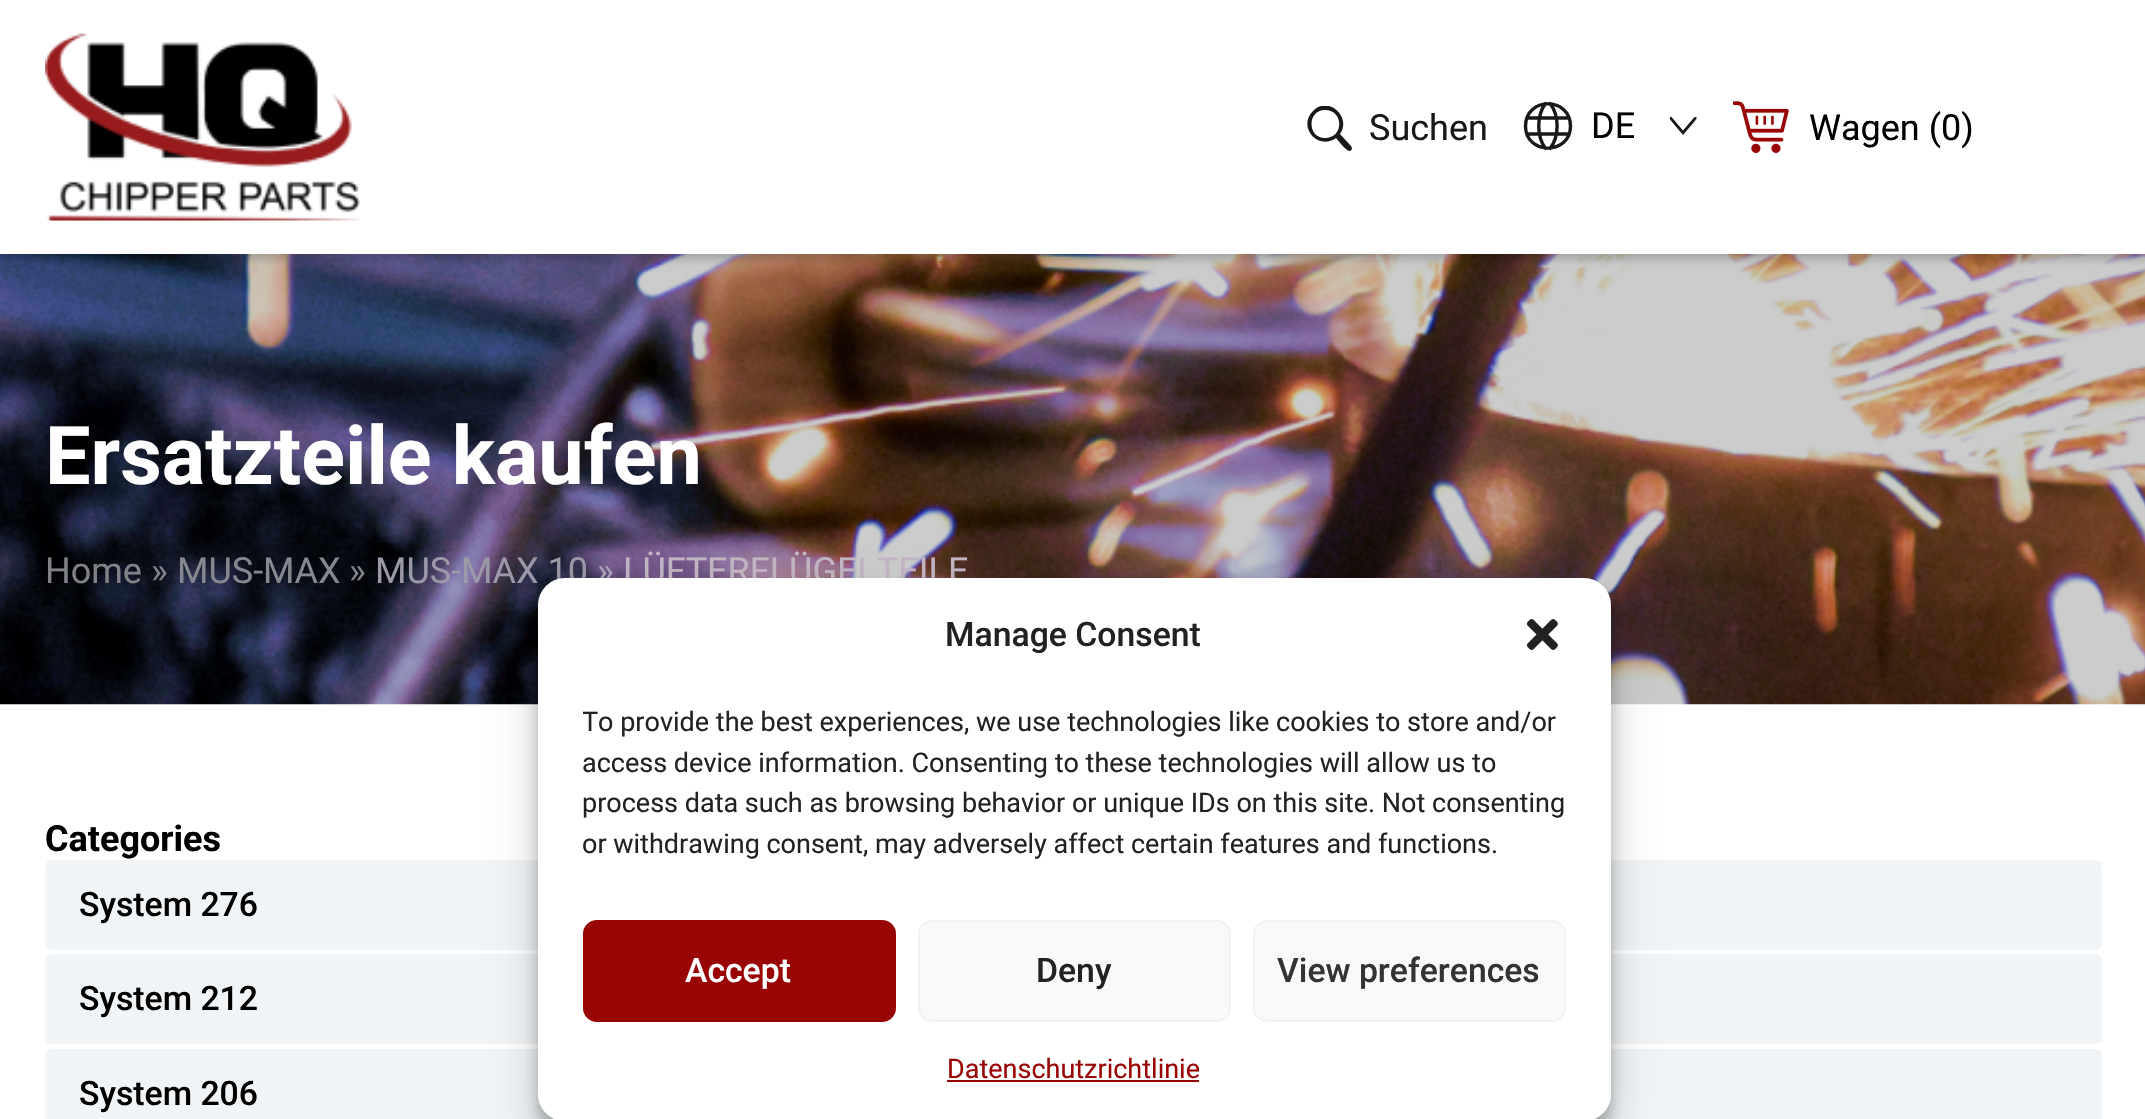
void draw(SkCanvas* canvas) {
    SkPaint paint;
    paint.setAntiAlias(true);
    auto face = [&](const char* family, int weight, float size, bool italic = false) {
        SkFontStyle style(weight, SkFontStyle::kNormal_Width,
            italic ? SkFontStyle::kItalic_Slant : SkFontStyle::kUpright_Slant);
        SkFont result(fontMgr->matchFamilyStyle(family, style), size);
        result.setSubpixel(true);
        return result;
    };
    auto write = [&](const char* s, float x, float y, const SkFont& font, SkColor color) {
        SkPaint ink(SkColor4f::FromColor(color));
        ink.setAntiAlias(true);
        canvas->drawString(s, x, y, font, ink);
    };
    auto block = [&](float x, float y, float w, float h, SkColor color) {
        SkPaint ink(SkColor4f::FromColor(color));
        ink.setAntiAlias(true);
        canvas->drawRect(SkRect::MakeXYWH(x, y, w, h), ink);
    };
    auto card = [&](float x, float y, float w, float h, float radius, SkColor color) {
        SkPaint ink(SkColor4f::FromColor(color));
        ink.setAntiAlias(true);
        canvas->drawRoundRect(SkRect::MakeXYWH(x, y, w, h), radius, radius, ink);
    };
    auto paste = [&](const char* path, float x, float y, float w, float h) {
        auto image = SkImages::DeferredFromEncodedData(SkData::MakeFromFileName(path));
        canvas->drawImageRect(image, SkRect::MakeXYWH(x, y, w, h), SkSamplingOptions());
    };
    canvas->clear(SK_ColorWHITE);
    paste("pic3.png", 0, 254, 2145, 451);
    paint.setColor(SkColorSetARGB(51, 0, 0, 0));
    paint.setMaskFilter(SkMaskFilter::MakeBlur(kNormal_SkBlurStyle, 4.5f));
    canvas->drawRect(SkRect::MakeXYWH(0, 5, 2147, 254), paint);
    paint.setMaskFilter(nullptr);
    block(0, 0, 2145, 254, SK_ColorWHITE);
    paste("pic1.png", 45, 33, 315, 188);
    canvas->save();
    canvas->clipRect(SkRect::MakeXYWH(1307, 106, 45, 45));
    paint.setColor(SkColorSetRGB(25, 25, 25));
    canvas->drawPath(SkPathBuilder().moveTo(1351, 146).lineTo(1340, 134).cubicTo(1352, 117, 1328, 95, 1313, 111).cubicTo(1297, 127, 1318, 151, 1336, 138).lineTo(1341, 144).cubicTo(1342, 145, 1351, 156, 1352, 148).close().moveTo(1325, 138).cubicTo(1307, 138, 1307, 110, 1325, 110).cubicTo(1344, 110, 1344, 138, 1325, 138).close().detach(), paint);
    canvas->restore();
    auto kFont1 = face("Roboto", 400, 36);
    write("Suchen", 1369, 140, kFont1, SkColorSetRGB(25, 25, 25));
    paint.setStyle(SkPaint::kStroke_Style);
    paint.setStrokeWidth(3.4f);
    paint.setStrokeCap(SkPaint::kRound_Cap);
    paint.setStrokeJoin(SkPaint::kRound_Join);
    canvas->drawPath(SkPathBuilder().moveTo(1525.5f, 126).cubicTo(1525.5f, 155.5f, 1570.5f, 155.5f, 1570.5f, 126).cubicTo(1570.5f, 96.5f, 1525.5f, 96.5f, 1525.5f, 126).close().moveTo(1550, 103.5f).cubicTo(1559.5f, 115.5f, 1559.5f, 136.5f, 1550, 148.5f).moveTo(1545.5f, 148.5f).cubicTo(1536.5f, 136.5f, 1536.5f, 115.5f, 1545.5f, 103.5f).moveTo(1527, 134).lineTo(1569, 134).moveTo(1527, 118).lineTo(1569, 118).detach(), paint);
    write("DE", 1591, 138, kFont1, SK_ColorBLACK);
    canvas->save();
    canvas->clipRect(SkRect::MakeXYWH(1670, 117, 27, 18));
    paint.setStyle(SkPaint::kFill_Style);
    canvas->drawPath(SkPathBuilder().moveTo(1683, 135).lineTo(1669.5f, 119).lineTo(1669.5f, 117).lineTo(1671.5f, 117).lineTo(1683, 130.5f).lineTo(1694.5f, 117).lineTo(1696.5f, 117).lineTo(1696.5f, 119).close().detach(), paint);
    canvas->restore();
    paste("pic2.png", 1733, 101, 56, 52);
    write("Wagen (0)", 1809, 140, kFont1, SK_ColorBLACK);
    auto kFont2 = face("Roboto", 700, 81);
    write("Ersatzteile kaufen", 45, 484, kFont2, SK_ColorWHITE);
    write("Home", 45, 583, kFont1, SkColorSetRGB(129, 130, 135));
    write("»", 151, 583, kFont1, SkColorSetRGB(129, 130, 135));
    write("MUS-MAX", 177, 583, kFont1, SkColorSetRGB(134, 136, 144));
    write("»", 349, 583, kFont1, SkColorSetRGB(129, 130, 135));
    write("MUS-MAX 10", 375, 583, kFont1, SkColorSetRGB(155, 152, 167));
    write("»", 597, 583, kFont1, SkColorSetRGB(173, 164, 186));
    write("LÜFTERFLÜGELTEILE", 623, 583, kFont1, SkColorSetRGB(195, 181, 195));
    auto kFont3 = face("Roboto", 700, 36);
    write("Categories", 45, 851, kFont3, SK_ColorBLACK);
    card(45, 860, 2057, 90, 7, SkColorSetRGB(240, 244, 246));
    auto kFont4 = face("Roboto", 500, 33.75f);
    write("System 276", 79, 916, kFont4, SK_ColorBLACK);
    card(45, 954, 2057, 90, 7, SkColorSetRGB(240, 244, 246));
    write("System 212", 79, 1010, kFont4, SK_ColorBLACK);
    card(45, 1049, 2057, 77, 7, SkColorSetRGB(240, 244, 246));
    write("System 206", 79, 1105, kFont4, SK_ColorBLACK);
    canvas->save();
    canvas->clipPath(SkPathBuilder(SkPathFillType::kEvenOdd).moveTo(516, 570).lineTo(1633, 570).lineTo(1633, 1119).lineTo(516, 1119).close().moveTo(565, 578).lineTo(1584, 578).cubicTo(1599, 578, 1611, 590, 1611, 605).lineTo(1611, 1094).cubicTo(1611, 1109, 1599, 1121, 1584, 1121).lineTo(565, 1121).cubicTo(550, 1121, 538, 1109, 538, 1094).lineTo(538, 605).cubicTo(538, 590, 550, 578, 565, 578).close().detach(), true);
    paint.setColor(SkColorSetARGB(59, 0, 0, 0));
    paint.setMaskFilter(SkMaskFilter::MakeBlur(kNormal_SkBlurStyle, 7));
    canvas->drawRoundRect(SkRect::MakeXYWH(538, 592, 1073, 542), 27, 27, paint);
    paint.setMaskFilter(nullptr);
    canvas->restore();
    canvas->save();
    canvas->clipPath(SkPathBuilder(SkPathFillType::kEvenOdd).moveTo(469, 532).lineTo(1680, 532).lineTo(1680, 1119).lineTo(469, 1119).close().moveTo(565, 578).lineTo(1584, 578).cubicTo(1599, 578, 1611, 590, 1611, 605).lineTo(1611, 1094).cubicTo(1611, 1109, 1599, 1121, 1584, 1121).lineTo(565, 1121).cubicTo(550, 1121, 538, 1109, 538, 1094).lineTo(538, 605).cubicTo(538, 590, 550, 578, 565, 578).close().detach(), true);
    paint.setColor(SkColorSetARGB(48, 0, 0, 0));
    paint.setMaskFilter(SkMaskFilter::MakeBlur(kNormal_SkBlurStyle, 22.5f));
    canvas->drawRoundRect(SkRect::MakeXYWH(538, 601, 1073, 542), 27, 27, paint);
    paint.setMaskFilter(nullptr);
    canvas->restore();
    card(538, 578, 1073, 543, 27, SK_ColorWHITE);
    write("Manage Consent", 945, 646, kFont4, SkColorSetRGB(34, 34, 34));
    paste("pic4.png", 1526, 619, 32, 31);
    canvas->save();
    canvas->clipRect(SkRect::MakeXYWH(583, 702, 983, 173));
    auto kFont5 = face("Roboto", 400, 27);
    write("To provide the best experiences, we use technologies like cookies to store and/or", 582, 731, kFont5, SkColorSetRGB(34, 34, 34));
    canvas->restore();
    write("access device information. Consenting to these technologies will allow us to", 582, 772, kFont5, SkColorSetRGB(34, 34, 34));
    write("process data such as browsing behavior or unique IDs on this site. Not consenting", 582, 812, kFont5, SkColorSetRGB(34, 34, 34));
    canvas->save();
    canvas->clipRect(SkRect::MakeXYWH(583, 702, 983, 173));
    write("or withdrawing consent, may adversely affect certain features and functions.", 582, 853, kFont5, SkColorSetRGB(34, 34, 34));
    canvas->restore();
    paint.setColor(SkColorSetRGB(153, 4, 4));
    canvas->drawRoundRect(SkRect::MakeXYWH(584, 921, 311, 100), 13, 13, paint);
    paint.setStyle(SkPaint::kStroke_Style);
    paint.setStrokeWidth(2);
    paint.setStrokeCap(SkPaint::kButt_Cap);
    paint.setStrokeJoin(SkPaint::kMiter_Join);
    canvas->drawRoundRect(SkRect::MakeXYWH(584, 921, 311, 100), 13, 13, paint);
    write("Accept", 685, 982, kFont4, SK_ColorWHITE);
    paint.setStyle(SkPaint::kFill_Style);
    paint.setColor(SkColorSetRGB(249, 249, 249));
    canvas->drawRoundRect(SkRect::MakeXYWH(919, 921, 311, 100), 13, 13, paint);
    paint.setStyle(SkPaint::kStroke_Style);
    paint.setColor(SkColorSetRGB(242, 242, 242));
    canvas->drawRoundRect(SkRect::MakeXYWH(919, 921, 311, 100), 13, 13, paint);
    write("Deny", 1036, 982, kFont4, SkColorSetRGB(34, 34, 34));
    paint.setStyle(SkPaint::kFill_Style);
    paint.setColor(SkColorSetRGB(249, 249, 249));
    canvas->drawRoundRect(SkRect::MakeXYWH(1254, 921, 311, 100), 13, 13, paint);
    paint.setStyle(SkPaint::kStroke_Style);
    paint.setColor(SkColorSetRGB(242, 242, 242));
    canvas->drawRoundRect(SkRect::MakeXYWH(1254, 921, 311, 100), 13, 13, paint);
    write("View preferences", 1277, 982, kFont4, SkColorSetRGB(51, 51, 51));
    write("Datenschutzrichtlinie", 947, 1078, kFont5, SkColorSetRGB(153, 4, 4));
    block(947, 1080, 252, 2, SkColorSetRGB(153, 4, 4));
}
